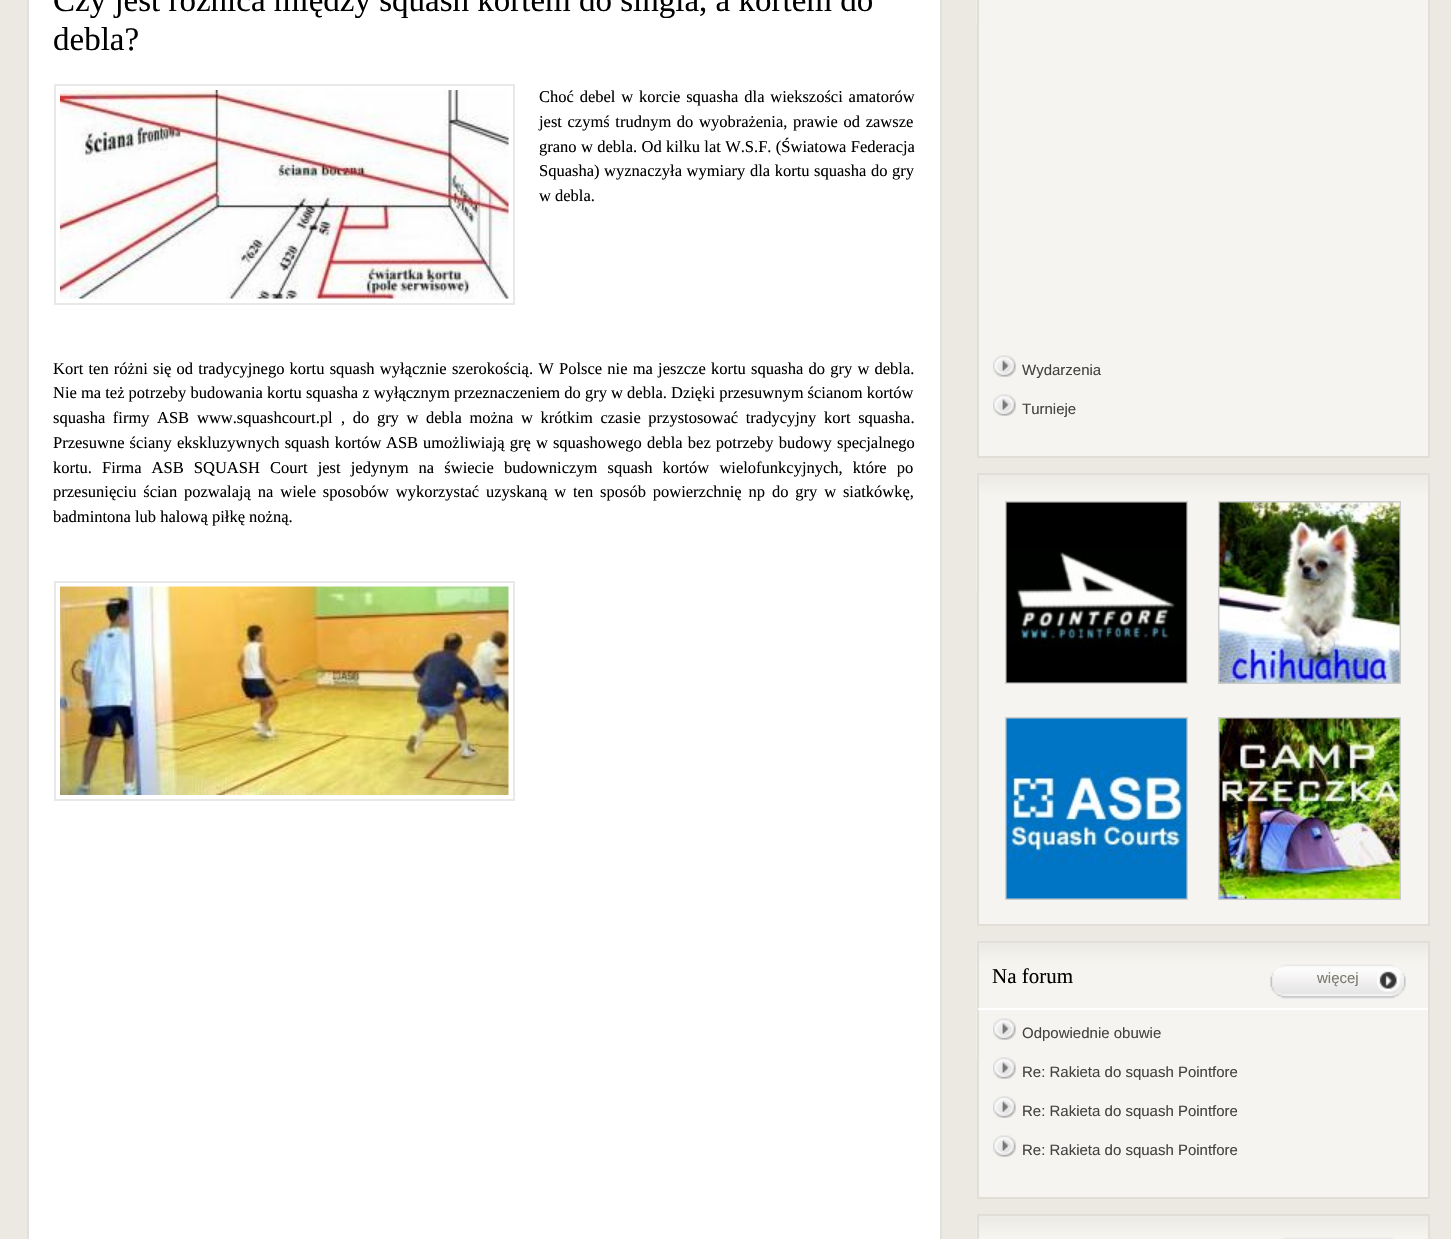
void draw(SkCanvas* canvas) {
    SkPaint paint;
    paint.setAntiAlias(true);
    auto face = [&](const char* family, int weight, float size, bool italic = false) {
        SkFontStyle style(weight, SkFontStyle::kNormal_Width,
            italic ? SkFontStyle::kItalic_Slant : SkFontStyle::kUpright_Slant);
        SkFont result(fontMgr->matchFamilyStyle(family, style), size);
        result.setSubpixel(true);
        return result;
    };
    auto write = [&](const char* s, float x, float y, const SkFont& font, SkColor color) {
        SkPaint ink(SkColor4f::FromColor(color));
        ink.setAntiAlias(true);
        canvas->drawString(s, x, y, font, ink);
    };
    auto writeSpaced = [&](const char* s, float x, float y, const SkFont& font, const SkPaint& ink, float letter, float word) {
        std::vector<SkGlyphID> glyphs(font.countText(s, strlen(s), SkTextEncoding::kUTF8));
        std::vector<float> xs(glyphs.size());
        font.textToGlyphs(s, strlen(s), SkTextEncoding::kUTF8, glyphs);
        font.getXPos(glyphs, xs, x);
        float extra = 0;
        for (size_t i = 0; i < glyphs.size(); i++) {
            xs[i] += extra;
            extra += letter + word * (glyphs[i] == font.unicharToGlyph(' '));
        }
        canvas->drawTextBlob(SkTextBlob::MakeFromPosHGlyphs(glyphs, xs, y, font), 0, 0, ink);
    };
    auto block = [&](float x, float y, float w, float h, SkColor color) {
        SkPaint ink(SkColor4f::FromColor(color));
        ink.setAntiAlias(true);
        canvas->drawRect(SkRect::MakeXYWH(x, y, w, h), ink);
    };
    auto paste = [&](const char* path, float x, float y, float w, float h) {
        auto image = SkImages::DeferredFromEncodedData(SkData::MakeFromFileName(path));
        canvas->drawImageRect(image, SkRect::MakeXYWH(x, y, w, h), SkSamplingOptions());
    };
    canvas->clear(SkColorSetRGB(235, 233, 225));
    paint.setColor(SK_ColorWHITE);
    canvas->drawRect(SkRect::MakeXYWH(28, -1, 913, 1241), paint);
    paint.setStyle(SkPaint::kStroke_Style);
    paint.setStrokeWidth(2);
    paint.setColor(SkColorSetRGB(224, 224, 224));
    canvas->drawRect(SkRect::MakeXYWH(28, -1, 913, 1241), paint);
    auto kFont1 = face("Liberation Serif", 400, 33);
    write("Czy jest różnica między squash kortem do singla, a kortem do", 53, 11, kFont1, SK_ColorBLACK);
    write("debla?", 53, 50, kFont1, SK_ColorBLACK);
    paint.setColor(SkColorSetRGB(232, 232, 232));
    canvas->drawRect(SkRect::MakeXYWH(55, 85, 459, 219), paint);
    paste("pic1.png", 60, 90, 449, 209);
    auto kFont2 = face("Liberation Serif", 400, 16.5f);
    paint.setStyle(SkPaint::kFill_Style);
    paint.setColor(SK_ColorBLACK);
    writeSpaced("Choć debel w korcie squasha dla wiekszości amatorów", 539, 102, kFont2, paint, 0, 1.75f);
    writeSpaced("jest czymś trudnym do wyobrażenia, prawie od zawsze", 539, 127, kFont2, paint, 0, 1.5f);
    writeSpaced("grano w debla. Od kilku lat W.S.F. (Światowa Federacja", 539, 152, kFont2, paint, 0, 0.25f);
    writeSpaced("Squasha) wyznaczyła wymiary dla kortu squasha do gry", 539, 176, kFont2, paint, 0, 0.5f);
    write("w debla.", 539, 201, kFont2, SK_ColorBLACK);
    writeSpaced("Kort ten różni się od tradycyjnego kortu squash wyłącznie szerokością. W Polsce nie ma jeszcze kortu squasha do gry w debla.", 53, 374, kFont2, paint, 0, 1.1f);
    write("Nie ma też potrzeby budowania kortu squasha z wyłącznym przeznaczeniem do gry w debla. Dzięki przesuwnym ścianom kortów", 53, 398, kFont2, SK_ColorBLACK);
    writeSpaced("squasha firmy", 53, 423, kFont2, paint, 0, 3.5f);
    write("ASB", 157, 423, kFont2, SK_ColorBLACK);
    write("www.squashcourt.pl", 197, 423, kFont2, SK_ColorBLACK);
    writeSpaced(", do gry w debla można w krótkim czasie przystosować tradycyjny kort squasha.", 341, 423, kFont2, paint, 0, 3.5f);
    writeSpaced("Przesuwne ściany ekskluzywnych squash kortów", 53, 448, kFont2, paint, 0, 1);
    write("ASB", 386, 448, kFont2, SK_ColorBLACK);
    writeSpaced("umożliwiają grę w squashowego debla bez potrzeby budowy specjalnego", 423, 448, kFont2, paint, 0, 1);
    writeSpaced("kortu. Firma ASB SQUASH Court jest jedynym na świecie budowniczym squash kortów wielofunkcyjnych, które po", 53, 473, kFont2, paint, 0, 6);
    writeSpaced("przesunięciu ścian pozwalają na wiele sposobów wykorzystać uzyskaną w ten sposób powierzchnię np do gry w siatkówkę,", 53, 497, kFont2, paint, 0, 2.75f);
    write("badmintona lub halową piłkę nożną.", 53, 522, kFont2, SK_ColorBLACK);
    paint.setStyle(SkPaint::kStroke_Style);
    paint.setColor(SkColorSetRGB(232, 232, 232));
    canvas->drawRect(SkRect::MakeXYWH(55, 582, 459, 218), paint);
    paste("pic2.png", 60, 586, 449, 209);
    paint.setStyle(SkPaint::kFill_Style);
    paint.setColor(SkColorSetRGB(245, 244, 240));
    canvas->drawRect(SkRect::MakeXYWH(978, -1, 451, 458), paint);
    paint.setStyle(SkPaint::kStroke_Style);
    paint.setColor(SkColorSetRGB(224, 222, 214));
    canvas->drawRect(SkRect::MakeXYWH(978, -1, 451, 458), paint);
    block(976, 0, 1, 22, SkColorSetRGB(240, 238, 232));
    paste("pic3.png", 993, 355, 23, 22);
    auto kFont3 = face("Liberation Sans", 400, 15);
    write("Wydarzenia", 1022, 375, kFont3, SkColorSetRGB(67, 67, 67));
    paste("pic3.png", 993, 394, 23, 22);
    write("Turnieje", 1022, 414, kFont3, SkColorSetRGB(67, 67, 67));
    block(979, 591, 449, 333, SkColorSetRGB(245, 244, 240));
    paste("pic4.png", 976, 474, 452, 117);
    canvas->drawRect(SkRect::MakeXYWH(978, 474, 451, 451), paint);
    paint.setColor(SkColorSetRGB(204, 204, 204));
    canvas->drawRect(SkRect::MakeXYWH(1006, 502, 181, 181), paint);
    paste("pic5.png", 1006, 502, 181, 181);
    canvas->drawRect(SkRect::MakeXYWH(1219, 502, 181, 181), paint);
    paste("pic6.png", 1219, 502, 181, 181);
    canvas->drawRect(SkRect::MakeXYWH(1006, 718, 181, 181), paint);
    paste("pic7.png", 1006, 718, 181, 181);
    canvas->drawRect(SkRect::MakeXYWH(1219, 718, 181, 181), paint);
    paste("pic8.png", 1219, 718, 181, 181);
    block(979, 1059, 449, 138, SkColorSetRGB(245, 244, 240));
    paste("pic4.png", 976, 942, 452, 117);
    paint.setColor(SkColorSetRGB(224, 222, 214));
    canvas->drawRect(SkRect::MakeXYWH(978, 942, 451, 256), paint);
    block(978, 1008, 450, 2, SK_ColorWHITE);
    auto kFont4 = face("Liberation Serif", 400, 21);
    write("Na forum", 992, 983, kFont4, SK_ColorBLACK);
    paste("pic9.png", 1270, 964, 136, 35);
    write("więcej", 1317, 983, kFont3, SkColorSetRGB(123, 123, 109));
    paste("pic3.png", 993, 1018, 23, 22);
    write("Odpowiednie obuwie", 1022, 1038, kFont3, SkColorSetRGB(67, 67, 67));
    paste("pic3.png", 993, 1057, 23, 22);
    write("Re: Rakieta do squash Pointfore", 1022, 1077, kFont3, SkColorSetRGB(67, 67, 67));
    paste("pic3.png", 993, 1096, 23, 22);
    write("Re: Rakieta do squash Pointfore", 1022, 1116, kFont3, SkColorSetRGB(67, 67, 67));
    paste("pic3.png", 993, 1135, 23, 22);
    write("Re: Rakieta do squash Pointfore", 1022, 1155, kFont3, SkColorSetRGB(67, 67, 67));
    paste("pic10.png", 976, 1215, 452, 24);
    canvas->drawRect(SkRect::MakeXYWH(978, 1215, 451, 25), paint);
    paste("pic11.png", 1281, 1237, 114, 2);
}
